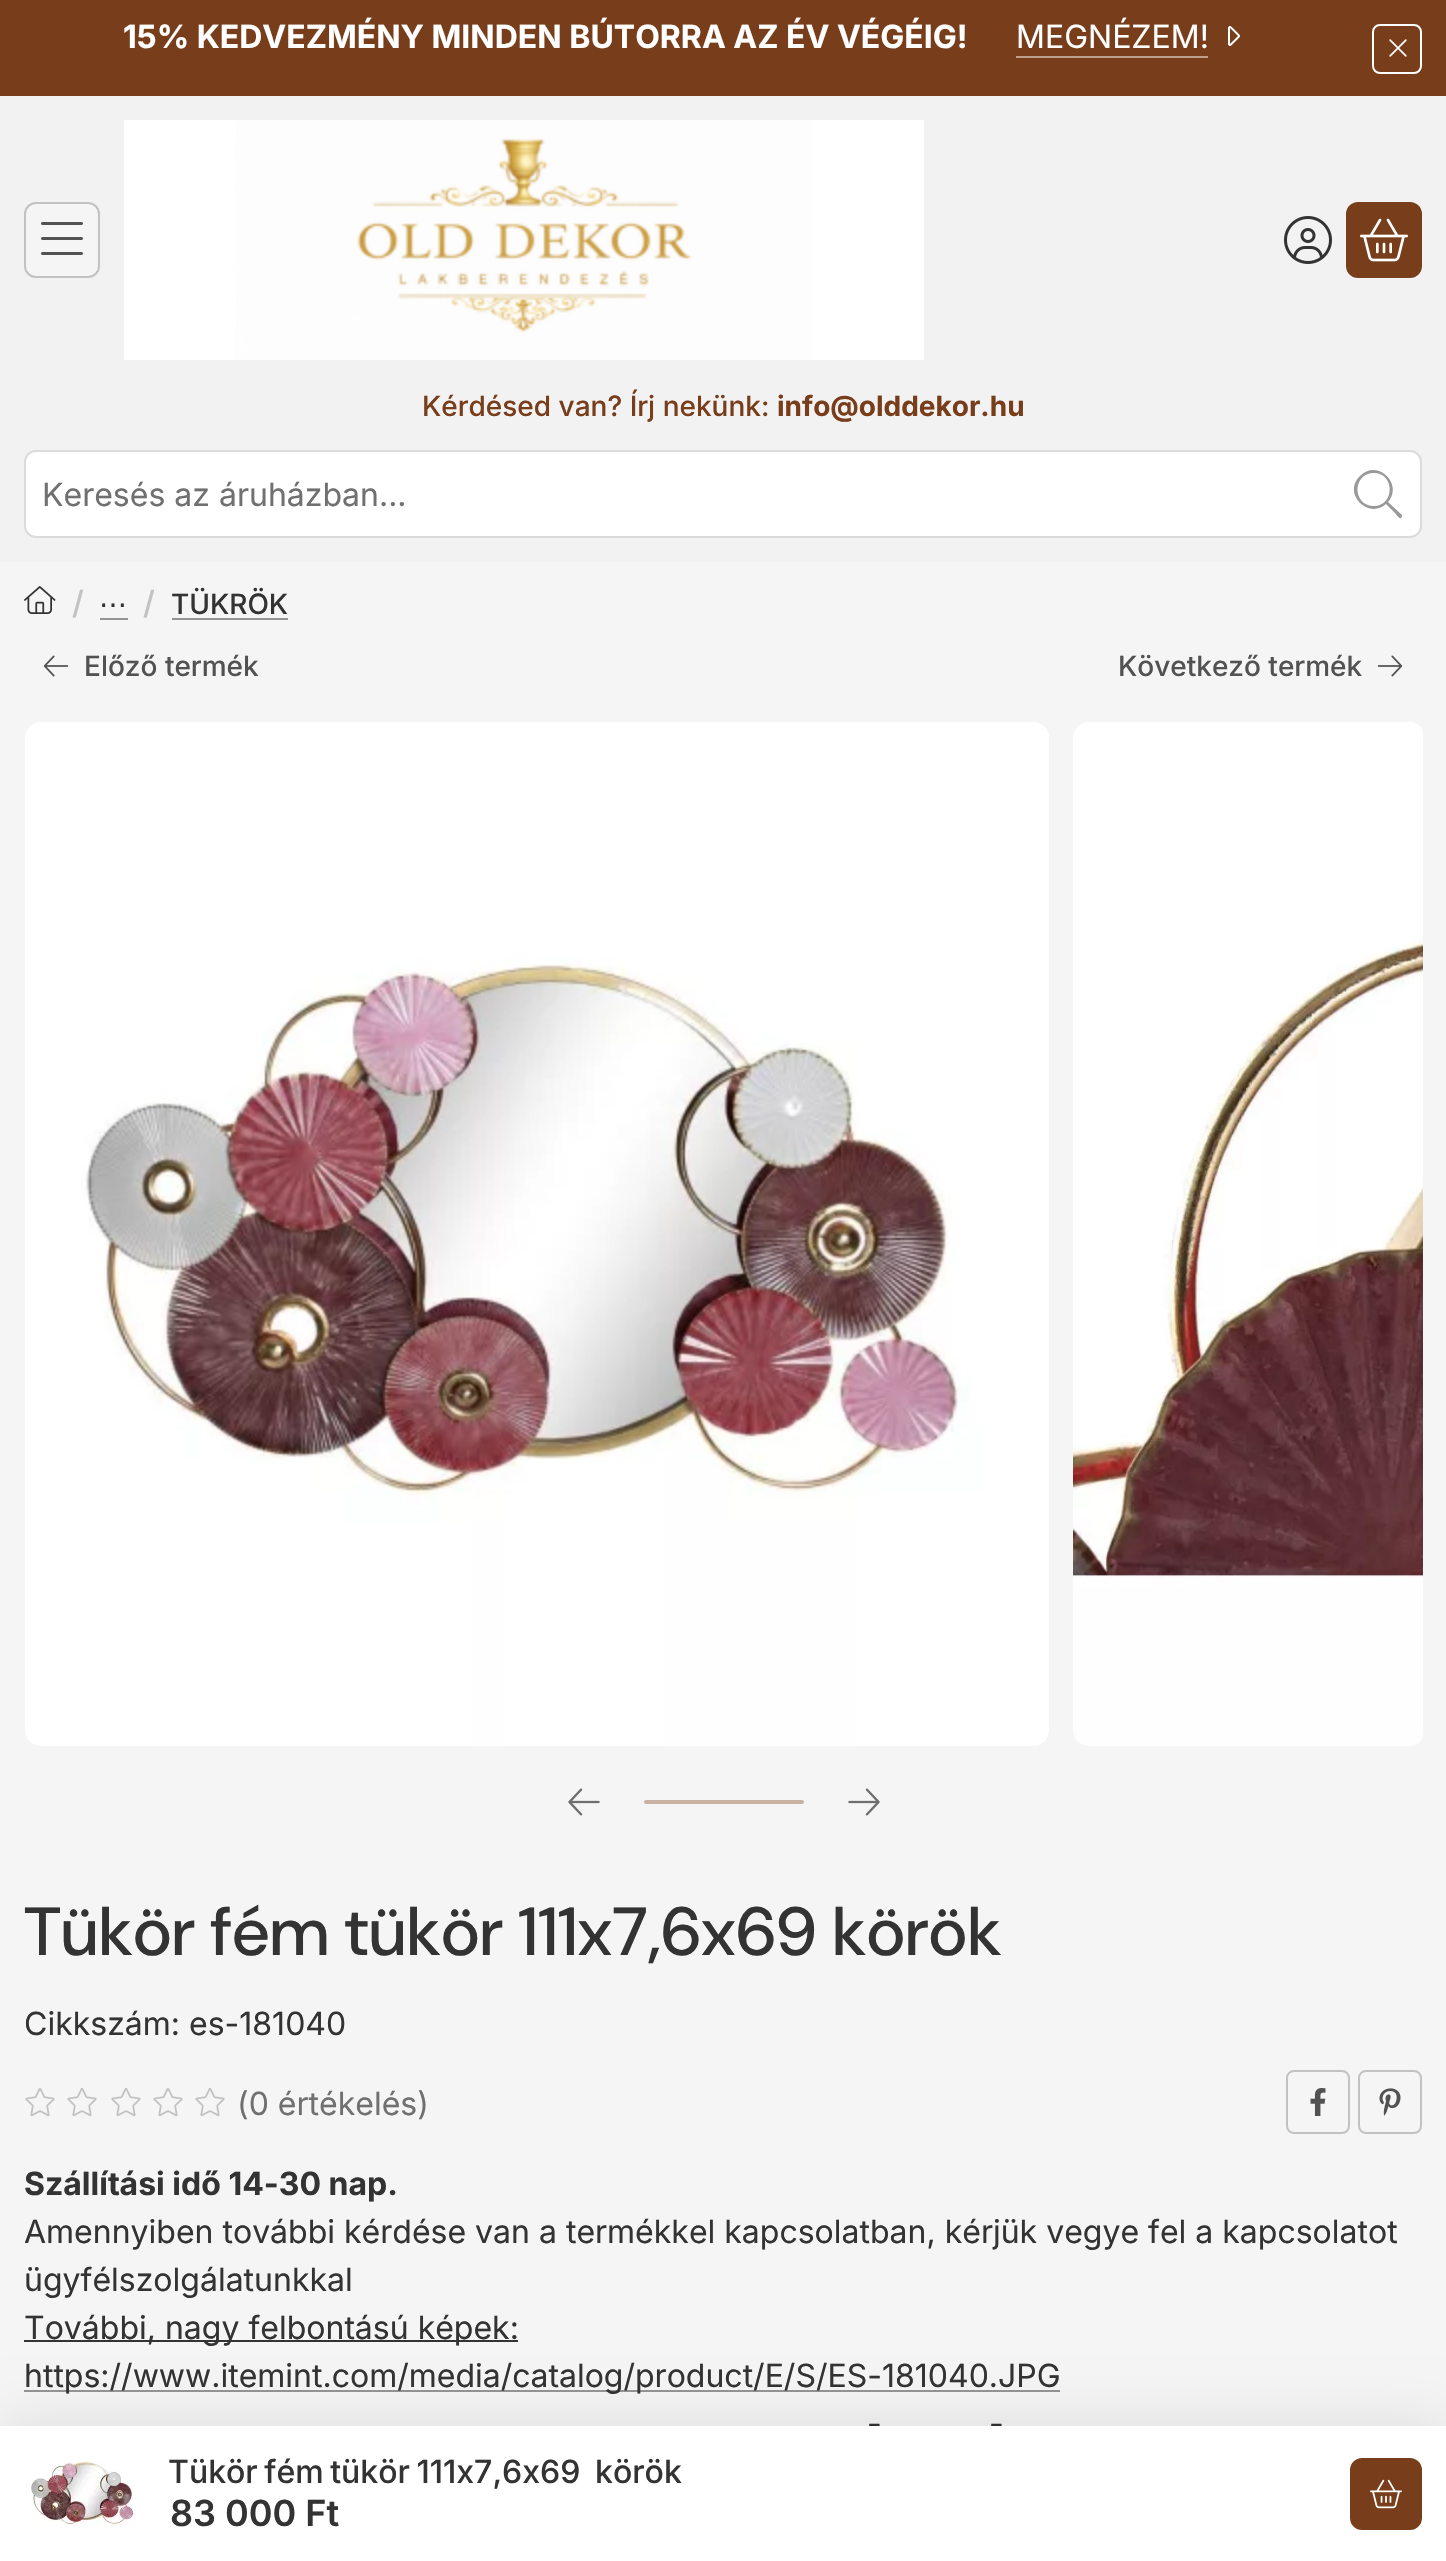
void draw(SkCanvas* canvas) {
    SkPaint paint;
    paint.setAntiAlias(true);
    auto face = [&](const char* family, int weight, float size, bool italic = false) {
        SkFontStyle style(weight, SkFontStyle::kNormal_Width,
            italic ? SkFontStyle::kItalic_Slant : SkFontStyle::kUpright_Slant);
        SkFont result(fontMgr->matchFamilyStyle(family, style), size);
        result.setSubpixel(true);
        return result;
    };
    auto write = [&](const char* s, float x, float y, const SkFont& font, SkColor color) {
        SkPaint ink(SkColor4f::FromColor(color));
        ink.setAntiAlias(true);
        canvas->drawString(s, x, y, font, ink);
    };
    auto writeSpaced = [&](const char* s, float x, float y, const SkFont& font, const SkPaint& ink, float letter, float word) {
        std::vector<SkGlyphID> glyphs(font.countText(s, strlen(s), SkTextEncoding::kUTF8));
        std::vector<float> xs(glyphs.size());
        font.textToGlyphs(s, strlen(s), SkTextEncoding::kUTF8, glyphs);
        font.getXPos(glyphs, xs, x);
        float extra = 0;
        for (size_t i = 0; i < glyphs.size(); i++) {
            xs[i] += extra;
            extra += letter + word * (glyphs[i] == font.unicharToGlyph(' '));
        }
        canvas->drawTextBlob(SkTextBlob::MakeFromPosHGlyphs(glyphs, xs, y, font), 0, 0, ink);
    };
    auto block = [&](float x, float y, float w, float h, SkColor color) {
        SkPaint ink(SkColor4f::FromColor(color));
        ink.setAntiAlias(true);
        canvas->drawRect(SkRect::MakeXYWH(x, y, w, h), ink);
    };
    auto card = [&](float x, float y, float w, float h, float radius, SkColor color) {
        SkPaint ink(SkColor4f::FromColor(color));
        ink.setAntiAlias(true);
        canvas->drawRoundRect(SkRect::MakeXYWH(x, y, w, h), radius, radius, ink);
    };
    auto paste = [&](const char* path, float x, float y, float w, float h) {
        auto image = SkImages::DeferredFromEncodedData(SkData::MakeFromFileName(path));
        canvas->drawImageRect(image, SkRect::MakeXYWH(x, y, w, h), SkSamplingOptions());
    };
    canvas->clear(SkColorSetRGB(245, 245, 245));
    block(0, 0, 1446, 96, SkColorSetRGB(120, 62, 27));
    auto kFont1 = face("Inter", 700, 32);
    write("15% KEDVEZMÉNY MINDEN BÚTORRA AZ ÉV VÉGÉIG!", 123, 48, kFont1, SK_ColorWHITE);
    auto kFont2 = face("Inter", 400, 32);
    write("MEGNÉZEM!", 1016, 48, kFont2, SK_ColorWHITE);
    block(1016, 56, 192, 2, SkColorSetRGB(188, 159, 141));
    paste("pic1.png", 1228, 26, 12, 20);
    paint.setStyle(SkPaint::kStroke_Style);
    paint.setStrokeWidth(2);
    paint.setColor(SK_ColorWHITE);
    canvas->drawRoundRect(SkRect::MakeXYWH(1373, 25, 48, 48), 7, 7, paint);
    paste("pic2.png", 1389, 39, 18, 18);
    block(0, 96, 1446, 466, SkColorSetRGB(242, 242, 242));
    paint.setStyle(SkPaint::kFill_Style);
    paint.setColor(SkColorSetRGB(245, 245, 245));
    canvas->drawRoundRect(SkRect::MakeXYWH(25, 203, 74, 74), 11, 11, paint);
    paint.setStyle(SkPaint::kStroke_Style);
    paint.setColor(SkColorSetRGB(194, 194, 194));
    canvas->drawRoundRect(SkRect::MakeXYWH(25, 203, 74, 74), 11, 11, paint);
    paste("pic3.png", 41, 222, 42, 33);
    paste("pic4.png", 124, 120, 800, 240);
    paste("pic5.png", 1284, 216, 48, 48);
    paint.setStyle(SkPaint::kFill_Style);
    paint.setColor(SkColorSetRGB(120, 62, 27));
    canvas->drawRoundRect(SkRect::MakeXYWH(1347, 203, 74, 74), 11, 11, paint);
    paint.setStyle(SkPaint::kStroke_Style);
    canvas->drawRoundRect(SkRect::MakeXYWH(1347, 203, 74, 74), 11, 11, paint);
    paste("pic6.png", 1360, 218, 48, 44);
    auto kFont3 = face("Inter", 500, 28);
    write("Kérdésed van? Írj nekünk:", 422, 416, kFont3, SkColorSetRGB(120, 62, 27));
    auto kFont4 = face("Inter", 700, 28);
    write("info@olddekor.hu", 777, 416, kFont4, SkColorSetRGB(120, 62, 27));
    paint.setStyle(SkPaint::kFill_Style);
    paint.setColor(SK_ColorWHITE);
    canvas->drawRoundRect(SkRect::MakeXYWH(25, 451, 1396, 86), 11, 11, paint);
    paint.setStyle(SkPaint::kStroke_Style);
    paint.setColor(SkColorSetRGB(219, 219, 219));
    canvas->drawRoundRect(SkRect::MakeXYWH(25, 451, 1396, 86), 11, 11, paint);
    write("Keresés az áruházban...", 42, 506, kFont2, SkColorSetRGB(112, 112, 112));
    paint.setStyle(SkPaint::kFill_Style);
    paint.setColor(SkColorSetRGB(153, 153, 153));
    canvas->drawPath(SkPathBuilder().moveTo(1402, 515).lineTo(1388, 502).cubicTo(1404, 484, 1377, 458, 1360, 476).cubicTo(1342, 493, 1368, 520, 1386, 504).lineTo(1395, 513).cubicTo(1396, 514, 1399, 519, 1401, 518).cubicTo(1402, 517, 1402, 516, 1402, 515).close().moveTo(1374, 506).cubicTo(1352, 506, 1352, 473, 1374, 473).cubicTo(1395, 473, 1395, 506, 1374, 506).close().detach(), paint);
    paste("pic7.png", 24, 586, 32, 28);
    auto kFont5 = face("Inter", 500, 32);
    write("/", 72, 614, kFont5, SkColorSetRGB(194, 194, 194));
    auto kFont6 = face("DejaVu Sans", 400, 28);
    write("⋯", 99, 614, kFont6, SkColorSetRGB(51, 51, 51));
    block(100, 618, 28, 2, SkColorSetRGB(148, 148, 148));
    write("/", 143, 614, kFont5, SkColorSetRGB(194, 194, 194));
    write("TÜKRÖK", 171, 614, kFont3, SkColorSetRGB(51, 51, 51));
    block(172, 618, 116, 2, SkColorSetRGB(148, 148, 148));
    paste("pic8.png", 43, 655, 26, 22);
    write("Előző termék", 84, 676, kFont3, SkColorSetRGB(82, 82, 82));
    write("Következő termék", 1118, 676, kFont3, SkColorSetRGB(82, 82, 82));
    paste("pic9.png", 1377, 655, 26, 22);
    paste("pic10.png", 25, 722, 1024, 1024);
    paste("pic11.png", 1073, 722, 350, 1024);
    paste("pic12.png", 568, 1788, 32, 28);
    card(644, 1800, 160, 4, 2, SkColorSetRGB(201, 178, 164));
    paste("pic13.png", 848, 1788, 32, 28);
    auto kFont7 = face("DM Sans", 500, 68);
    write("Tükör fém tükör 111x7,6x69 körök", 24, 1955, kFont7, SkColorSetRGB(51, 51, 51));
    write("Cikkszám: es-181040", 24, 2035, kFont2, SkColorSetRGB(51, 51, 51));
    paste("pic14.png", 25, 2087, 30, 30);
    paste("pic14.png", 67, 2087, 30, 30);
    paste("pic14.png", 111, 2087, 30, 30);
    paste("pic14.png", 153, 2087, 30, 30);
    paste("pic14.png", 195, 2087, 30, 30);
    write("(0 értékelés)", 237, 2115, kFont2, SkColorSetRGB(112, 112, 112));
    paint.setStyle(SkPaint::kStroke_Style);
    paint.setColor(SkColorSetRGB(194, 194, 194));
    canvas->drawRoundRect(SkRect::MakeXYWH(1287, 2071, 62, 62), 7, 7, paint);
    paste("pic15.png", 1310, 2088, 16, 28);
    canvas->drawRoundRect(SkRect::MakeXYWH(1359, 2071, 62, 62), 7, 7, paint);
    paste("pic16.png", 1379, 2088, 22, 28);
    write("Szállítási idő 14-30 nap.", 24, 2195, kFont1, SkColorSetRGB(51, 51, 51));
    write("Amennyiben további kérdése van a termékkel kapcsolatban, kérjük vegye fel a kapcsolatot", 24, 2243, kFont2, SkColorSetRGB(51, 51, 51));
    write("ügyfélszolgálatunkkal", 24, 2291, kFont2, SkColorSetRGB(51, 51, 51));
    block(24, 2340, 494, 2, SkColorSetRGB(51, 51, 51));
    write("További, nagy felbontású képek:", 24, 2339, kFont2, SkColorSetRGB(51, 51, 51));
    block(24, 2390, 1036, 2, SkColorSetRGB(148, 148, 148));
    write("https://www.itemint.com/media/catalog/product/E/S/ES-181040.JPG", 24, 2387, kFont2, SkColorSetRGB(51, 51, 51));
    write("-", 867, 2435, kFont2, SkColorSetRGB(51, 51, 51));
    write("-", 989, 2435, kFont2, SkColorSetRGB(51, 51, 51));
    paint.setStyle(SkPaint::kFill_Style);
    paint.setColor(SkColorSetARGB(26, 0, 0, 0));
    paint.setMaskFilter(SkMaskFilter::MakeBlur(kNormal_SkBlurStyle, 30));
    canvas->drawRect(SkRect::MakeXYWH(0, 2426, 1446, 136), paint);
    paint.setMaskFilter(nullptr);
    block(0, 2426, 1446, 135, SK_ColorWHITE);
    paste("pic17.png", 29, 2460, 106, 66);
    paint.setColor(SkColorSetRGB(51, 51, 51));
    writeSpaced("Tükör fém tükör 111x7,6x69", 168, 2483, kFont5, paint, 0, -2);
    writeSpaced("körök", 595, 2483, kFont5, paint, 0, -2);
    auto kFont8 = face("Inter", 600, 36);
    write("83 000 Ft", 170, 2526, kFont8, SkColorSetRGB(51, 51, 51));
    paint.setColor(SkColorSetRGB(120, 62, 27));
    canvas->drawRoundRect(SkRect::MakeXYWH(1351, 2459, 70, 70), 11, 11, paint);
    paint.setStyle(SkPaint::kStroke_Style);
    canvas->drawRoundRect(SkRect::MakeXYWH(1351, 2459, 70, 70), 11, 11, paint);
    paste("pic18.png", 1370, 2479, 32, 30);
}
